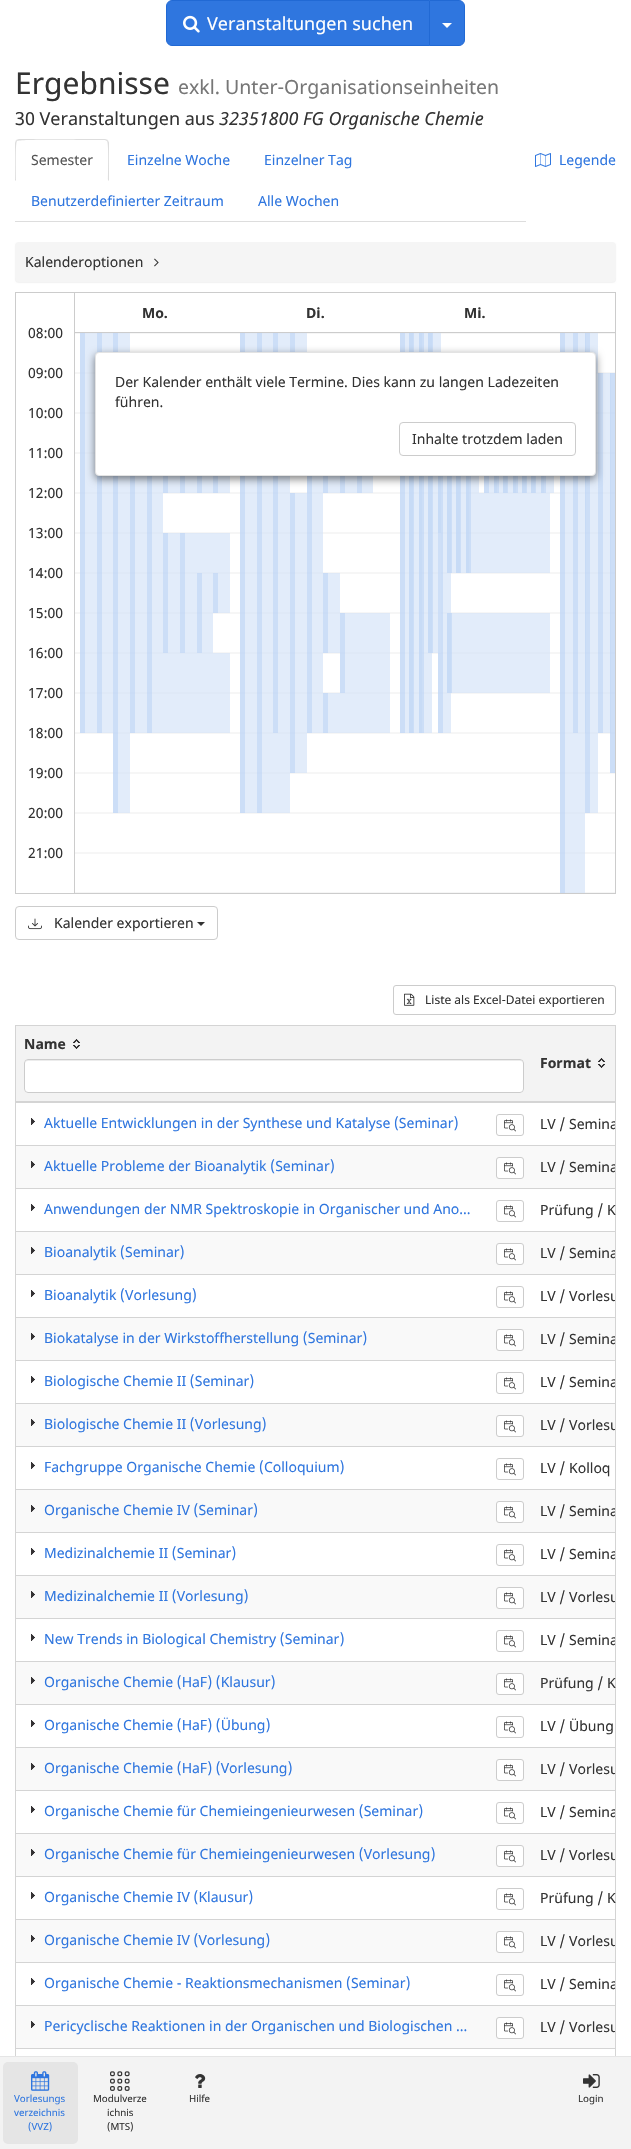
void draw(SkCanvas* canvas) {
    SkPaint paint;
    paint.setAntiAlias(true);
    auto face = [&](const char* family, int weight, float size, bool italic = false) {
        SkFontStyle style(weight, SkFontStyle::kNormal_Width,
            italic ? SkFontStyle::kItalic_Slant : SkFontStyle::kUpright_Slant);
        SkFont result(fontMgr->matchFamilyStyle(family, style), size);
        result.setSubpixel(true);
        return result;
    };
    auto write = [&](const char* s, float x, float y, const SkFont& font, SkColor color) {
        SkPaint ink(SkColor4f::FromColor(color));
        ink.setAntiAlias(true);
        canvas->drawString(s, x, y, font, ink);
    };
    auto block = [&](float x, float y, float w, float h, SkColor color) {
        SkPaint ink(SkColor4f::FromColor(color));
        ink.setAntiAlias(true);
        canvas->drawRect(SkRect::MakeXYWH(x, y, w, h), ink);
    };
    auto card = [&](float x, float y, float w, float h, float radius, SkColor color) {
        SkPaint ink(SkColor4f::FromColor(color));
        ink.setAntiAlias(true);
        canvas->drawRoundRect(SkRect::MakeXYWH(x, y, w, h), radius, radius, ink);
    };
    auto paste = [&](const char* path, float x, float y, float w, float h) {
        auto image = SkImages::DeferredFromEncodedData(SkData::MakeFromFileName(path));
        canvas->drawImageRect(image, SkRect::MakeXYWH(x, y, w, h), SkSamplingOptions());
    };
    canvas->clear(SK_ColorWHITE);
    paint.setColor(SkColorSetRGB(47, 118, 223));
    canvas->drawPath(SkPathBuilder().moveTo(172, 0.5f).lineTo(429.5f, 0.5f).lineTo(429.5f, 45.5f).lineTo(172, 45.5f).cubicTo(169, 45.5f, 166.5f, 43, 166.5f, 40).lineTo(166.5f, 6).cubicTo(166.5f, 3, 169, 0.5f, 172, 0.5f).close().detach(), paint);
    paint.setStyle(SkPaint::kStroke_Style);
    paint.setStrokeWidth(1);
    paint.setColor(SkColorSetRGB(33, 105, 212));
    canvas->drawPath(SkPathBuilder().moveTo(172, 0.5f).lineTo(429.5f, 0.5f).lineTo(429.5f, 45.5f).lineTo(172, 45.5f).cubicTo(169, 45.5f, 166.5f, 43, 166.5f, 40).lineTo(166.5f, 6).cubicTo(166.5f, 3, 169, 0.5f, 172, 0.5f).close().detach(), paint);
    paste("pic1.png", 183, 15, 17, 18);
    auto kFont1 = face("Noto Sans", 400, 18);
    write("Veranstaltungen suchen", 207, 30, kFont1, SK_ColorWHITE);
    paint.setStyle(SkPaint::kFill_Style);
    paint.setColor(SkColorSetRGB(47, 118, 223));
    canvas->drawPath(SkPathBuilder().moveTo(429.5f, 0.5f).lineTo(459, 0.5f).cubicTo(462, 0.5f, 464.5f, 3, 464.5f, 6).lineTo(464.5f, 40).cubicTo(464.5f, 43, 462, 45.5f, 459, 45.5f).lineTo(429.5f, 45.5f).close().detach(), paint);
    paint.setStyle(SkPaint::kStroke_Style);
    paint.setColor(SkColorSetRGB(33, 105, 212));
    canvas->drawPath(SkPathBuilder().moveTo(429.5f, 0.5f).lineTo(459, 0.5f).cubicTo(462, 0.5f, 464.5f, 3, 464.5f, 6).lineTo(464.5f, 40).cubicTo(464.5f, 43, 462, 45.5f, 459, 45.5f).lineTo(429.5f, 45.5f).close().detach(), paint);
    paint.setStyle(SkPaint::kFill_Style);
    paint.setColor(SK_ColorWHITE);
    canvas->drawPath(SkPathBuilder().moveTo(442, 23).lineTo(452, 23).lineTo(447, 28).close().detach(), paint);
    auto kFont2 = face("Noto Sans", 400, 30);
    write("Ergebnisse", 15, 94, kFont2, SkColorSetRGB(51, 51, 51));
    auto kFont3 = face("Noto Sans", 400, 19.5f);
    write("exkl. Unter-Organisationseinheiten", 178, 94, kFont3, SkColorSetRGB(119, 119, 119));
    write("30 Veranstaltungen aus", 15, 125, kFont1, SkColorSetRGB(51, 51, 51));
    auto kFont4 = face("Noto Sans", 400, 18, true);
    write("32351800 FG Organische Chemie", 219, 125, kFont4, SkColorSetRGB(51, 51, 51));
    block(15, 221, 511, 1, SkColorSetRGB(221, 221, 221));
    paint.setColor(SkColorSetRGB(221, 221, 221));
    canvas->drawPath(SkPathBuilder().moveTo(19, 139).lineTo(16, 140).lineTo(17, 141).cubicTo(19, 139, 83, 140, 91, 140).lineTo(105, 140).lineTo(107, 141).lineTo(108, 140).lineTo(105, 139).close().detach(), paint);
    canvas->drawPath(SkPathBuilder().moveTo(109, 181).lineTo(109, 143).cubicTo(109, 142, 108, 141, 108, 140).lineTo(107, 141).cubicTo(109, 143, 108, 175, 108, 180).close().detach(), paint);
    canvas->drawPath(SkPathBuilder().moveTo(15, 181).lineTo(16, 180).cubicTo(16, 175, 15, 143, 17, 141).lineTo(16, 140).lineTo(15, 143).close().detach(), paint);
    auto kFont5 = face("Noto Sans", 400, 14);
    write("Semester", 31, 165, kFont5, SkColorSetRGB(85, 85, 85));
    write("Einzelne Woche", 127, 165, kFont5, SkColorSetRGB(47, 118, 223));
    write("Einzelner Tag", 264, 165, kFont5, SkColorSetRGB(47, 118, 223));
    write("Benutzerdefinierter Zeitraum", 31, 206, kFont5, SkColorSetRGB(47, 118, 223));
    write("Alle Wochen", 258, 206, kFont5, SkColorSetRGB(47, 118, 223));
    paste("pic2.png", 535, 153, 16, 14);
    write("Legende", 559, 165, kFont5, SkColorSetRGB(47, 118, 223));
    paint.setColor(SkColorSetARGB(13, 0, 0, 0));
    paint.setMaskFilter(SkMaskFilter::MakeBlur(kNormal_SkBlurStyle, 0.5f));
    canvas->drawRoundRect(SkRect::MakeXYWH(15, 243, 601, 40), 4, 4, paint);
    paint.setMaskFilter(nullptr);
    card(15, 242, 601, 40, 4, SkColorSetRGB(245, 245, 245));
    write("Kalenderoptionen", 25, 267, kFont5, SkColorSetRGB(51, 51, 51));
    paste("pic3.png", 154, 258, 5, 9);
    block(75, 292, 541, 1, SkColorSetRGB(204, 204, 204));
    block(615, 292, 1, 602, SkColorSetRGB(204, 204, 204));
    block(75, 893, 541, 1, SkColorSetRGB(204, 204, 204));
    block(75, 332, 540, 1, SkColorSetRGB(204, 204, 204));
    auto kFont6 = face("Noto Sans", 700, 14);
    write("Mo.", 142, 318, kFont6, SkColorSetRGB(51, 51, 51));
    paste("pic4.png", 75, 333, 160, 560);
    block(80, 333, 17, 400, SkColorSetARGB(153, 206, 223, 247));
    block(80, 333, 5, 400, SkColorSetARGB(153, 188, 211, 245));
    block(97, 333, 16, 400, SkColorSetARGB(153, 206, 223, 247));
    block(97, 333, 5, 400, SkColorSetARGB(153, 188, 211, 245));
    block(113, 333, 17, 19, SkColorSetARGB(153, 206, 223, 247));
    block(113, 333, 5, 19, SkColorSetARGB(153, 188, 211, 245));
    block(113, 476, 17, 17, SkColorSetARGB(153, 206, 223, 247));
    block(113, 476, 5, 17, SkColorSetARGB(153, 188, 211, 245));
    block(130, 476, 17, 257, SkColorSetARGB(153, 206, 223, 247));
    block(130, 476, 5, 257, SkColorSetARGB(153, 188, 211, 245));
    block(147, 476, 16, 17, SkColorSetARGB(153, 206, 223, 247));
    block(147, 476, 5, 17, SkColorSetARGB(153, 188, 211, 245));
    block(163, 476, 17, 17, SkColorSetARGB(153, 206, 223, 247));
    block(163, 476, 5, 17, SkColorSetARGB(153, 188, 211, 245));
    block(180, 476, 17, 17, SkColorSetARGB(153, 206, 223, 247));
    block(180, 476, 5, 17, SkColorSetARGB(153, 188, 211, 245));
    block(197, 476, 16, 17, SkColorSetARGB(153, 206, 223, 247));
    block(197, 476, 5, 17, SkColorSetARGB(153, 188, 211, 245));
    block(213, 476, 17, 17, SkColorSetARGB(153, 206, 223, 247));
    block(213, 476, 5, 17, SkColorSetARGB(153, 188, 211, 245));
    block(113, 493, 17, 80, SkColorSetARGB(153, 206, 223, 247));
    block(113, 493, 5, 80, SkColorSetARGB(153, 188, 211, 245));
    block(147, 493, 16, 80, SkColorSetARGB(153, 206, 223, 247));
    block(147, 493, 5, 80, SkColorSetARGB(153, 188, 211, 245));
    block(163, 533, 17, 80, SkColorSetARGB(153, 206, 223, 247));
    block(163, 533, 5, 80, SkColorSetARGB(153, 188, 211, 245));
    block(180, 533, 50, 40, SkColorSetARGB(153, 206, 223, 247));
    block(180, 533, 5, 40, SkColorSetARGB(153, 188, 211, 245));
    block(113, 573, 17, 80, SkColorSetARGB(153, 206, 223, 247));
    block(113, 573, 5, 80, SkColorSetARGB(153, 188, 211, 245));
    block(147, 573, 16, 80, SkColorSetARGB(153, 206, 223, 247));
    block(147, 573, 5, 80, SkColorSetARGB(153, 188, 211, 245));
    block(180, 573, 17, 80, SkColorSetARGB(153, 206, 223, 247));
    block(180, 573, 5, 80, SkColorSetARGB(153, 188, 211, 245));
    block(197, 573, 16, 80, SkColorSetARGB(153, 206, 223, 247));
    block(197, 573, 5, 80, SkColorSetARGB(153, 188, 211, 245));
    block(213, 573, 17, 40, SkColorSetARGB(153, 206, 223, 247));
    block(213, 573, 5, 40, SkColorSetARGB(153, 188, 211, 245));
    block(163, 613, 17, 40, SkColorSetARGB(153, 206, 223, 247));
    block(163, 613, 5, 40, SkColorSetARGB(153, 188, 211, 245));
    block(113, 653, 17, 160, SkColorSetARGB(153, 206, 223, 247));
    block(113, 653, 5, 160, SkColorSetARGB(153, 188, 211, 245));
    block(147, 653, 83, 40, SkColorSetARGB(153, 206, 223, 247));
    block(147, 653, 5, 40, SkColorSetARGB(153, 188, 211, 245));
    block(147, 693, 83, 40, SkColorSetARGB(153, 206, 223, 247));
    block(147, 693, 5, 40, SkColorSetARGB(153, 188, 211, 245));
    write("Di.", 306, 318, kFont6, SkColorSetRGB(51, 51, 51));
    paste("pic4.png", 235, 333, 160, 560);
    block(240, 333, 17, 400, SkColorSetARGB(153, 206, 223, 247));
    block(240, 333, 5, 400, SkColorSetARGB(153, 188, 211, 245));
    block(257, 333, 16, 400, SkColorSetARGB(153, 206, 223, 247));
    block(257, 333, 5, 400, SkColorSetARGB(153, 188, 211, 245));
    block(273, 333, 17, 400, SkColorSetARGB(153, 206, 223, 247));
    block(273, 333, 5, 400, SkColorSetARGB(153, 188, 211, 245));
    block(290, 333, 17, 19, SkColorSetARGB(153, 206, 223, 247));
    block(290, 333, 5, 19, SkColorSetARGB(153, 188, 211, 245));
    block(307, 476, 16, 257, SkColorSetARGB(153, 206, 223, 247));
    block(307, 476, 5, 257, SkColorSetARGB(153, 188, 211, 245));
    block(323, 476, 17, 17, SkColorSetARGB(153, 206, 223, 247));
    block(323, 476, 5, 17, SkColorSetARGB(153, 188, 211, 245));
    block(340, 476, 17, 17, SkColorSetARGB(153, 206, 223, 247));
    block(340, 476, 5, 17, SkColorSetARGB(153, 188, 211, 245));
    block(357, 476, 16, 17, SkColorSetARGB(153, 206, 223, 247));
    block(357, 476, 5, 17, SkColorSetARGB(153, 188, 211, 245));
    block(290, 493, 17, 80, SkColorSetARGB(153, 206, 223, 247));
    block(290, 493, 5, 80, SkColorSetARGB(153, 188, 211, 245));
    block(290, 573, 17, 80, SkColorSetARGB(153, 206, 223, 247));
    block(290, 573, 5, 80, SkColorSetARGB(153, 188, 211, 245));
    block(323, 573, 17, 80, SkColorSetARGB(153, 206, 223, 247));
    block(323, 573, 5, 80, SkColorSetARGB(153, 188, 211, 245));
    block(340, 613, 50, 80, SkColorSetARGB(153, 206, 223, 247));
    block(340, 613, 5, 80, SkColorSetARGB(153, 188, 211, 245));
    block(290, 653, 17, 120, SkColorSetARGB(153, 206, 223, 247));
    block(290, 653, 5, 120, SkColorSetARGB(153, 188, 211, 245));
    block(323, 693, 67, 40, SkColorSetARGB(153, 206, 223, 247));
    block(323, 693, 5, 40, SkColorSetARGB(153, 188, 211, 245));
    block(240, 733, 17, 80, SkColorSetARGB(153, 206, 223, 247));
    block(240, 733, 5, 80, SkColorSetARGB(153, 188, 211, 245));
    block(257, 733, 33, 80, SkColorSetARGB(153, 206, 223, 247));
    block(257, 733, 5, 80, SkColorSetARGB(153, 188, 211, 245));
    write("Mi.", 464, 318, kFont6, SkColorSetRGB(51, 51, 51));
    paste("pic4.png", 395, 333, 160, 560);
    block(400, 333, 13, 400, SkColorSetARGB(153, 206, 223, 247));
    block(400, 333, 5, 400, SkColorSetARGB(153, 188, 211, 245));
    block(409, 333, 13, 400, SkColorSetARGB(153, 206, 223, 247));
    block(409, 333, 5, 400, SkColorSetARGB(153, 188, 211, 245));
    block(419, 333, 13, 400, SkColorSetARGB(153, 206, 223, 247));
    block(419, 333, 5, 400, SkColorSetARGB(153, 188, 211, 245));
    block(428, 333, 13, 200, SkColorSetARGB(153, 206, 223, 247));
    block(428, 333, 5, 200, SkColorSetARGB(153, 188, 211, 245));
    block(438, 476, 13, 257, SkColorSetARGB(153, 206, 223, 247));
    block(438, 476, 5, 257, SkColorSetARGB(153, 188, 211, 245));
    block(447, 476, 13, 17, SkColorSetARGB(153, 206, 223, 247));
    block(447, 476, 5, 17, SkColorSetARGB(153, 188, 211, 245));
    block(456, 476, 13, 17, SkColorSetARGB(153, 206, 223, 247));
    block(456, 476, 5, 17, SkColorSetARGB(153, 188, 211, 245));
    block(466, 476, 13, 17, SkColorSetARGB(153, 206, 223, 247));
    block(466, 476, 5, 17, SkColorSetARGB(153, 188, 211, 245));
    block(484, 476, 13, 17, SkColorSetARGB(153, 206, 223, 247));
    block(484, 476, 5, 17, SkColorSetARGB(153, 188, 211, 245));
    block(494, 476, 13, 17, SkColorSetARGB(153, 206, 223, 247));
    block(494, 476, 5, 17, SkColorSetARGB(153, 188, 211, 245));
    block(503, 476, 13, 17, SkColorSetARGB(153, 206, 223, 247));
    block(503, 476, 5, 17, SkColorSetARGB(153, 188, 211, 245));
    block(513, 476, 13, 17, SkColorSetARGB(153, 206, 223, 247));
    block(513, 476, 5, 17, SkColorSetARGB(153, 188, 211, 245));
    block(522, 476, 13, 17, SkColorSetARGB(153, 206, 223, 247));
    block(522, 476, 5, 17, SkColorSetARGB(153, 188, 211, 245));
    block(531, 476, 13, 17, SkColorSetARGB(153, 206, 223, 247));
    block(531, 476, 5, 17, SkColorSetARGB(153, 188, 211, 245));
    block(541, 476, 13, 17, SkColorSetARGB(153, 206, 223, 247));
    block(541, 476, 5, 17, SkColorSetARGB(153, 188, 211, 245));
    block(447, 493, 13, 80, SkColorSetARGB(153, 206, 223, 247));
    block(447, 493, 5, 80, SkColorSetARGB(153, 188, 211, 245));
    block(456, 493, 13, 80, SkColorSetARGB(153, 206, 223, 247));
    block(456, 493, 5, 80, SkColorSetARGB(153, 188, 211, 245));
    block(466, 493, 84, 40, SkColorSetARGB(153, 206, 223, 247));
    block(466, 493, 5, 40, SkColorSetARGB(153, 188, 211, 245));
    block(428, 533, 13, 40, SkColorSetARGB(153, 206, 223, 247));
    block(428, 533, 5, 40, SkColorSetARGB(153, 188, 211, 245));
    block(466, 533, 84, 40, SkColorSetARGB(153, 206, 223, 247));
    block(466, 533, 5, 40, SkColorSetARGB(153, 188, 211, 245));
    block(428, 573, 13, 80, SkColorSetARGB(153, 206, 223, 247));
    block(428, 573, 5, 80, SkColorSetARGB(153, 188, 211, 245));
    block(447, 613, 103, 80, SkColorSetARGB(153, 206, 223, 247));
    block(447, 613, 5, 80, SkColorSetARGB(153, 188, 211, 245));
    paste("pic5.png", 555, 333, 60, 560);
    block(560, 333, 13, 400, SkColorSetARGB(153, 206, 223, 247));
    block(560, 333, 5, 400, SkColorSetARGB(153, 188, 211, 245));
    block(573, 333, 13, 19, SkColorSetARGB(153, 206, 223, 247));
    block(573, 333, 5, 19, SkColorSetARGB(153, 188, 211, 245));
    block(585, 333, 13, 80, SkColorSetARGB(153, 206, 223, 247));
    block(585, 333, 5, 19, SkColorSetARGB(153, 188, 211, 245));
    block(598, 373, 13, 360, SkColorSetARGB(153, 206, 223, 247));
    block(598, 373, 5, 360, SkColorSetARGB(153, 188, 211, 245));
    block(610, 373, 5, 120, SkColorSetARGB(153, 206, 223, 247));
    block(610, 373, 5, 120, SkColorSetARGB(153, 188, 211, 245));
    block(573, 476, 13, 257, SkColorSetARGB(153, 206, 223, 247));
    block(585, 413, 13, 80, SkColorSetARGB(153, 206, 223, 247));
    block(585, 476, 5, 17, SkColorSetARGB(153, 188, 211, 245));
    block(573, 476, 5, 257, SkColorSetARGB(153, 188, 211, 245));
    block(585, 493, 13, 80, SkColorSetARGB(153, 206, 223, 247));
    block(585, 493, 5, 80, SkColorSetARGB(153, 188, 211, 245));
    block(610, 493, 5, 40, SkColorSetARGB(153, 206, 223, 247));
    block(610, 493, 5, 40, SkColorSetARGB(153, 188, 211, 245));
    block(585, 573, 13, 240, SkColorSetARGB(153, 206, 223, 247));
    block(585, 573, 5, 240, SkColorSetARGB(153, 188, 211, 245));
    block(610, 533, 5, 160, SkColorSetARGB(153, 206, 223, 247));
    block(610, 533, 5, 160, SkColorSetARGB(153, 188, 211, 245));
    block(560, 733, 25, 160, SkColorSetARGB(153, 206, 223, 247));
    block(560, 733, 5, 160, SkColorSetARGB(153, 188, 211, 245));
    block(610, 693, 5, 80, SkColorSetARGB(153, 206, 223, 247));
    block(610, 693, 5, 80, SkColorSetARGB(153, 188, 211, 245));
    paint.setStyle(SkPaint::kStroke_Style);
    paint.setColor(SkColorSetRGB(204, 204, 204));
    canvas->drawRect(SkRect::MakeXYWH(15.5f, 292.5f, 59, 601), paint);
    write("08:00", 28, 338, kFont5, SkColorSetRGB(51, 51, 51));
    write("09:00", 28, 378, kFont5, SkColorSetRGB(51, 51, 51));
    write("10:00", 28, 418, kFont5, SkColorSetRGB(51, 51, 51));
    write("11:00", 28, 458, kFont5, SkColorSetRGB(51, 51, 51));
    write("12:00", 28, 498, kFont5, SkColorSetRGB(51, 51, 51));
    write("13:00", 28, 538, kFont5, SkColorSetRGB(51, 51, 51));
    write("14:00", 28, 578, kFont5, SkColorSetRGB(51, 51, 51));
    write("15:00", 28, 618, kFont5, SkColorSetRGB(51, 51, 51));
    write("16:00", 28, 658, kFont5, SkColorSetRGB(51, 51, 51));
    write("17:00", 28, 698, kFont5, SkColorSetRGB(51, 51, 51));
    write("18:00", 28, 738, kFont5, SkColorSetRGB(51, 51, 51));
    write("19:00", 28, 778, kFont5, SkColorSetRGB(51, 51, 51));
    write("20:00", 28, 818, kFont5, SkColorSetRGB(51, 51, 51));
    write("21:00", 28, 858, kFont5, SkColorSetRGB(51, 51, 51));
    paint.setStyle(SkPaint::kFill_Style);
    paint.setColor(SkColorSetARGB(128, 0, 0, 0));
    paint.setMaskFilter(SkMaskFilter::MakeBlur(kNormal_SkBlurStyle, 4.5f));
    canvas->drawRoundRect(SkRect::MakeXYWH(95, 355, 501, 124), 4, 4, paint);
    paint.setMaskFilter(nullptr);
    paint.setColor(SK_ColorWHITE);
    canvas->drawRoundRect(SkRect::MakeXYWH(95.5f, 352.5f, 500, 123), 3.5f, 3.5f, paint);
    paint.setStyle(SkPaint::kStroke_Style);
    paint.setColor(SkColorSetRGB(227, 227, 227));
    canvas->drawRoundRect(SkRect::MakeXYWH(95.5f, 352.5f, 500, 123), 3.5f, 3.5f, paint);
    write("Der Kalender enthält viele Termine. Dies kann zu langen Ladezeiten", 115, 387, kFont5, SkColorSetRGB(51, 51, 51));
    write("führen.", 115, 407, kFont5, SkColorSetRGB(51, 51, 51));
    paint.setColor(SkColorSetRGB(204, 204, 204));
    canvas->drawRoundRect(SkRect::MakeXYWH(399.5f, 422.5f, 176, 33), 3.5f, 3.5f, paint);
    write("Inhalte trotzdem laden", 412, 444, kFont5, SkColorSetRGB(51, 51, 51));
    canvas->drawRoundRect(SkRect::MakeXYWH(15.5f, 906.5f, 202, 33), 3.5f, 3.5f, paint);
    paste("pic6.png", 28, 918, 14, 12);
    write("Kalender exportieren", 54, 928, kFont5, SkColorSetRGB(51, 51, 51));
    paint.setStyle(SkPaint::kFill_Style);
    paint.setColor(SkColorSetRGB(51, 51, 51));
    canvas->drawPath(SkPathBuilder().moveTo(197, 922).lineTo(205, 922).lineTo(201, 926).close().detach(), paint);
    paint.setStyle(SkPaint::kStroke_Style);
    paint.setColor(SkColorSetRGB(204, 204, 204));
    canvas->drawRoundRect(SkRect::MakeXYWH(393.5f, 985.5f, 222, 29), 2.5f, 2.5f, paint);
    paste("pic7.png", 404, 993, 11, 13);
    auto kFont7 = face("Noto Sans", 400, 12);
    write("Liste als Excel-Datei exportieren", 425, 1004, kFont7, SkColorSetRGB(51, 51, 51));
    paint.setColor(SkColorSetRGB(212, 212, 212));
    canvas->drawRect(SkRect::MakeXYWH(15.5f, 1025.5f, 600, 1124), paint);
    block(16, 1026, 599, 75, SkColorSetRGB(243, 243, 243));
    block(16, 1101, 599, 2, SkColorSetRGB(212, 212, 212));
    write("Name", 24, 1049, kFont6, SkColorSetRGB(51, 51, 51));
    paste("pic8.png", 73, 1039, 7, 10);
    card(24, 1059, 500, 34, 4, SK_ColorWHITE);
    paint.setStyle(SkPaint::kFill_Style);
    paint.setColor(SkColorSetRGB(236, 236, 236));
    canvas->drawPath(SkPathBuilder().moveTo(28, 1061).lineTo(520, 1061).cubicTo(522, 1061, 523, 1062, 523, 1064).cubicTo(523, 1062, 522, 1060, 520, 1060).lineTo(28, 1060).cubicTo(26, 1060, 25, 1062, 25, 1064).cubicTo(25, 1062, 26, 1061, 28, 1061).close().detach(), paint);
    paint.setStyle(SkPaint::kStroke_Style);
    paint.setColor(SkColorSetRGB(204, 204, 204));
    canvas->drawRoundRect(SkRect::MakeXYWH(24.5f, 1059.5f, 499, 33), 3.5f, 3.5f, paint);
    write("Format", 540, 1068, kFont6, SkColorSetRGB(51, 51, 51));
    paste("pic8.png", 598, 1058, 7, 10);
    paste("pic9.png", 31, 1118, 4, 7);
    write("Aktuelle Entwicklungen in der Synthese und Katalyse (Seminar)", 44, 1128, kFont5, SkColorSetRGB(47, 118, 223));
    canvas->drawRoundRect(SkRect::MakeXYWH(496.5f, 1114.5f, 27, 21), 2.5f, 2.5f, paint);
    paste("pic10.png", 504, 1119, 12, 13);
    canvas->save();
    canvas->clipRect(SkRect::MakeXYWH(532, 1103, 83, 42));
    write("LV / Semina", 540, 1129, kFont5, SkColorSetRGB(51, 51, 51));
    canvas->restore();
    block(16, 1146, 599, 42, SkColorSetRGB(249, 249, 249));
    paste("pic11.png", 31, 1161, 4, 7);
    write("Aktuelle Probleme der Bioanalytik (Seminar)", 44, 1171, kFont5, SkColorSetRGB(47, 118, 223));
    paint.setStyle(SkPaint::kFill_Style);
    paint.setColor(SK_ColorWHITE);
    canvas->drawRoundRect(SkRect::MakeXYWH(496.5f, 1157.5f, 27, 21), 2.5f, 2.5f, paint);
    paint.setStyle(SkPaint::kStroke_Style);
    paint.setColor(SkColorSetRGB(204, 204, 204));
    canvas->drawRoundRect(SkRect::MakeXYWH(496.5f, 1157.5f, 27, 21), 2.5f, 2.5f, paint);
    paste("pic10.png", 504, 1162, 12, 13);
    block(16, 1145, 599, 1, SkColorSetRGB(212, 212, 212));
    canvas->save();
    canvas->clipRect(SkRect::MakeXYWH(532, 1146, 83, 42));
    write("LV / Semina", 540, 1172, kFont5, SkColorSetRGB(51, 51, 51));
    canvas->restore();
    paste("pic9.png", 31, 1204, 4, 7);
    write("Anwendungen der NMR Spektroskopie in Organischer und Ano…", 44, 1214, kFont5, SkColorSetRGB(47, 118, 223));
    canvas->drawRoundRect(SkRect::MakeXYWH(496.5f, 1200.5f, 27, 21), 2.5f, 2.5f, paint);
    paste("pic10.png", 504, 1205, 12, 13);
    block(16, 1188, 599, 1, SkColorSetRGB(212, 212, 212));
    write("Prüfung / K", 540, 1215, kFont5, SkColorSetRGB(51, 51, 51));
    block(16, 1232, 599, 42, SkColorSetRGB(249, 249, 249));
    paste("pic11.png", 31, 1247, 4, 7);
    write("Bioanalytik (Seminar)", 44, 1257, kFont5, SkColorSetRGB(47, 118, 223));
    paint.setStyle(SkPaint::kFill_Style);
    paint.setColor(SK_ColorWHITE);
    canvas->drawRoundRect(SkRect::MakeXYWH(496.5f, 1243.5f, 27, 21), 2.5f, 2.5f, paint);
    paint.setStyle(SkPaint::kStroke_Style);
    paint.setColor(SkColorSetRGB(204, 204, 204));
    canvas->drawRoundRect(SkRect::MakeXYWH(496.5f, 1243.5f, 27, 21), 2.5f, 2.5f, paint);
    paste("pic10.png", 504, 1248, 12, 13);
    block(16, 1231, 599, 1, SkColorSetRGB(212, 212, 212));
    canvas->save();
    canvas->clipRect(SkRect::MakeXYWH(532, 1232, 83, 42));
    write("LV / Semina", 540, 1258, kFont5, SkColorSetRGB(51, 51, 51));
    canvas->restore();
    paste("pic9.png", 31, 1290, 4, 7);
    write("Bioanalytik (Vorlesung)", 44, 1300, kFont5, SkColorSetRGB(47, 118, 223));
    canvas->drawRoundRect(SkRect::MakeXYWH(496.5f, 1286.5f, 27, 21), 2.5f, 2.5f, paint);
    paste("pic10.png", 504, 1291, 12, 13);
    block(16, 1274, 599, 1, SkColorSetRGB(212, 212, 212));
    canvas->save();
    canvas->clipRect(SkRect::MakeXYWH(532, 1275, 83, 42));
    write("LV / Vorlesu", 540, 1301, kFont5, SkColorSetRGB(51, 51, 51));
    canvas->restore();
    block(16, 1318, 599, 42, SkColorSetRGB(249, 249, 249));
    paste("pic11.png", 31, 1333, 4, 7);
    write("Biokatalyse in der Wirkstoffherstellung (Seminar)", 44, 1343, kFont5, SkColorSetRGB(47, 118, 223));
    paint.setStyle(SkPaint::kFill_Style);
    paint.setColor(SK_ColorWHITE);
    canvas->drawRoundRect(SkRect::MakeXYWH(496.5f, 1329.5f, 27, 21), 2.5f, 2.5f, paint);
    paint.setStyle(SkPaint::kStroke_Style);
    paint.setColor(SkColorSetRGB(204, 204, 204));
    canvas->drawRoundRect(SkRect::MakeXYWH(496.5f, 1329.5f, 27, 21), 2.5f, 2.5f, paint);
    paste("pic10.png", 504, 1334, 12, 13);
    block(16, 1317, 599, 1, SkColorSetRGB(212, 212, 212));
    canvas->save();
    canvas->clipRect(SkRect::MakeXYWH(532, 1318, 83, 42));
    write("LV / Semina", 540, 1344, kFont5, SkColorSetRGB(51, 51, 51));
    canvas->restore();
    paste("pic9.png", 31, 1376, 4, 7);
    write("Biologische Chemie II (Seminar)", 44, 1386, kFont5, SkColorSetRGB(47, 118, 223));
    canvas->drawRoundRect(SkRect::MakeXYWH(496.5f, 1372.5f, 27, 21), 2.5f, 2.5f, paint);
    paste("pic10.png", 504, 1377, 12, 13);
    block(16, 1360, 599, 1, SkColorSetRGB(212, 212, 212));
    canvas->save();
    canvas->clipRect(SkRect::MakeXYWH(532, 1361, 83, 42));
    write("LV / Semina", 540, 1387, kFont5, SkColorSetRGB(51, 51, 51));
    canvas->restore();
    block(16, 1404, 599, 42, SkColorSetRGB(249, 249, 249));
    paste("pic11.png", 31, 1419, 4, 7);
    write("Biologische Chemie II (Vorlesung)", 44, 1429, kFont5, SkColorSetRGB(47, 118, 223));
    paint.setStyle(SkPaint::kFill_Style);
    paint.setColor(SK_ColorWHITE);
    canvas->drawRoundRect(SkRect::MakeXYWH(496.5f, 1415.5f, 27, 21), 2.5f, 2.5f, paint);
    paint.setStyle(SkPaint::kStroke_Style);
    paint.setColor(SkColorSetRGB(204, 204, 204));
    canvas->drawRoundRect(SkRect::MakeXYWH(496.5f, 1415.5f, 27, 21), 2.5f, 2.5f, paint);
    paste("pic10.png", 504, 1420, 12, 13);
    block(16, 1403, 599, 1, SkColorSetRGB(212, 212, 212));
    canvas->save();
    canvas->clipRect(SkRect::MakeXYWH(532, 1404, 83, 42));
    write("LV / Vorlesu", 540, 1430, kFont5, SkColorSetRGB(51, 51, 51));
    canvas->restore();
    paste("pic9.png", 31, 1462, 4, 7);
    write("Fachgruppe Organische Chemie (Colloquium)", 44, 1472, kFont5, SkColorSetRGB(47, 118, 223));
    canvas->drawRoundRect(SkRect::MakeXYWH(496.5f, 1458.5f, 27, 21), 2.5f, 2.5f, paint);
    paste("pic10.png", 504, 1463, 12, 13);
    block(16, 1446, 599, 1, SkColorSetRGB(212, 212, 212));
    write("LV / Kolloq", 540, 1473, kFont5, SkColorSetRGB(51, 51, 51));
    block(16, 1490, 599, 42, SkColorSetRGB(249, 249, 249));
    paste("pic11.png", 31, 1505, 4, 7);
    write("Organische Chemie IV (Seminar)", 44, 1515, kFont5, SkColorSetRGB(47, 118, 223));
    paint.setStyle(SkPaint::kFill_Style);
    paint.setColor(SK_ColorWHITE);
    canvas->drawRoundRect(SkRect::MakeXYWH(496.5f, 1501.5f, 27, 21), 2.5f, 2.5f, paint);
    paint.setStyle(SkPaint::kStroke_Style);
    paint.setColor(SkColorSetRGB(204, 204, 204));
    canvas->drawRoundRect(SkRect::MakeXYWH(496.5f, 1501.5f, 27, 21), 2.5f, 2.5f, paint);
    paste("pic10.png", 504, 1506, 12, 13);
    block(16, 1489, 599, 1, SkColorSetRGB(212, 212, 212));
    canvas->save();
    canvas->clipRect(SkRect::MakeXYWH(532, 1490, 83, 42));
    write("LV / Semina", 540, 1516, kFont5, SkColorSetRGB(51, 51, 51));
    canvas->restore();
    paste("pic9.png", 31, 1548, 4, 7);
    write("Medizinalchemie II (Seminar)", 44, 1558, kFont5, SkColorSetRGB(47, 118, 223));
    canvas->drawRoundRect(SkRect::MakeXYWH(496.5f, 1544.5f, 27, 21), 2.5f, 2.5f, paint);
    paste("pic10.png", 504, 1549, 12, 13);
    block(16, 1532, 599, 1, SkColorSetRGB(212, 212, 212));
    canvas->save();
    canvas->clipRect(SkRect::MakeXYWH(532, 1533, 83, 42));
    write("LV / Semina", 540, 1559, kFont5, SkColorSetRGB(51, 51, 51));
    canvas->restore();
    block(16, 1576, 599, 42, SkColorSetRGB(249, 249, 249));
    paste("pic11.png", 31, 1591, 4, 7);
    write("Medizinalchemie II (Vorlesung)", 44, 1601, kFont5, SkColorSetRGB(47, 118, 223));
    paint.setStyle(SkPaint::kFill_Style);
    paint.setColor(SK_ColorWHITE);
    canvas->drawRoundRect(SkRect::MakeXYWH(496.5f, 1587.5f, 27, 21), 2.5f, 2.5f, paint);
    paint.setStyle(SkPaint::kStroke_Style);
    paint.setColor(SkColorSetRGB(204, 204, 204));
    canvas->drawRoundRect(SkRect::MakeXYWH(496.5f, 1587.5f, 27, 21), 2.5f, 2.5f, paint);
    paste("pic10.png", 504, 1592, 12, 13);
    block(16, 1575, 599, 1, SkColorSetRGB(212, 212, 212));
    canvas->save();
    canvas->clipRect(SkRect::MakeXYWH(532, 1576, 83, 42));
    write("LV / Vorlesu", 540, 1602, kFont5, SkColorSetRGB(51, 51, 51));
    canvas->restore();
    paste("pic9.png", 31, 1634, 4, 7);
    write("New Trends in Biological Chemistry (Seminar)", 44, 1644, kFont5, SkColorSetRGB(47, 118, 223));
    canvas->drawRoundRect(SkRect::MakeXYWH(496.5f, 1630.5f, 27, 21), 2.5f, 2.5f, paint);
    paste("pic10.png", 504, 1635, 12, 13);
    block(16, 1618, 599, 1, SkColorSetRGB(212, 212, 212));
    canvas->save();
    canvas->clipRect(SkRect::MakeXYWH(532, 1619, 83, 42));
    write("LV / Semina", 540, 1645, kFont5, SkColorSetRGB(51, 51, 51));
    canvas->restore();
    block(16, 1662, 599, 42, SkColorSetRGB(249, 249, 249));
    paste("pic11.png", 31, 1677, 4, 7);
    write("Organische Chemie (HaF) (Klausur)", 44, 1687, kFont5, SkColorSetRGB(47, 118, 223));
    paint.setStyle(SkPaint::kFill_Style);
    paint.setColor(SK_ColorWHITE);
    canvas->drawRoundRect(SkRect::MakeXYWH(496.5f, 1673.5f, 27, 21), 2.5f, 2.5f, paint);
    paint.setStyle(SkPaint::kStroke_Style);
    paint.setColor(SkColorSetRGB(204, 204, 204));
    canvas->drawRoundRect(SkRect::MakeXYWH(496.5f, 1673.5f, 27, 21), 2.5f, 2.5f, paint);
    paste("pic10.png", 504, 1678, 12, 13);
    block(16, 1661, 599, 1, SkColorSetRGB(212, 212, 212));
    write("Prüfung / K", 540, 1688, kFont5, SkColorSetRGB(51, 51, 51));
    paste("pic9.png", 31, 1720, 4, 7);
    write("Organische Chemie (HaF) (Übung)", 44, 1730, kFont5, SkColorSetRGB(47, 118, 223));
    canvas->drawRoundRect(SkRect::MakeXYWH(496.5f, 1716.5f, 27, 21), 2.5f, 2.5f, paint);
    paste("pic10.png", 504, 1721, 12, 13);
    block(16, 1704, 599, 1, SkColorSetRGB(212, 212, 212));
    write("LV / Übung", 540, 1731, kFont5, SkColorSetRGB(51, 51, 51));
    block(16, 1748, 599, 42, SkColorSetRGB(249, 249, 249));
    paste("pic11.png", 31, 1763, 4, 7);
    write("Organische Chemie (HaF) (Vorlesung)", 44, 1773, kFont5, SkColorSetRGB(47, 118, 223));
    paint.setStyle(SkPaint::kFill_Style);
    paint.setColor(SK_ColorWHITE);
    canvas->drawRoundRect(SkRect::MakeXYWH(496.5f, 1759.5f, 27, 21), 2.5f, 2.5f, paint);
    paint.setStyle(SkPaint::kStroke_Style);
    paint.setColor(SkColorSetRGB(204, 204, 204));
    canvas->drawRoundRect(SkRect::MakeXYWH(496.5f, 1759.5f, 27, 21), 2.5f, 2.5f, paint);
    paste("pic10.png", 504, 1764, 12, 13);
    block(16, 1747, 599, 1, SkColorSetRGB(212, 212, 212));
    canvas->save();
    canvas->clipRect(SkRect::MakeXYWH(532, 1748, 83, 42));
    write("LV / Vorlesu", 540, 1774, kFont5, SkColorSetRGB(51, 51, 51));
    canvas->restore();
    paste("pic9.png", 31, 1806, 4, 7);
    write("Organische Chemie für Chemieingenieurwesen (Seminar)", 44, 1816, kFont5, SkColorSetRGB(47, 118, 223));
    canvas->drawRoundRect(SkRect::MakeXYWH(496.5f, 1802.5f, 27, 21), 2.5f, 2.5f, paint);
    paste("pic10.png", 504, 1807, 12, 13);
    block(16, 1790, 599, 1, SkColorSetRGB(212, 212, 212));
    canvas->save();
    canvas->clipRect(SkRect::MakeXYWH(532, 1791, 83, 42));
    write("LV / Semina", 540, 1817, kFont5, SkColorSetRGB(51, 51, 51));
    canvas->restore();
    block(16, 1834, 599, 42, SkColorSetRGB(249, 249, 249));
    paste("pic11.png", 31, 1849, 4, 7);
    write("Organische Chemie für Chemieingenieurwesen (Vorlesung)", 44, 1859, kFont5, SkColorSetRGB(47, 118, 223));
    paint.setStyle(SkPaint::kFill_Style);
    paint.setColor(SK_ColorWHITE);
    canvas->drawRoundRect(SkRect::MakeXYWH(496.5f, 1845.5f, 27, 21), 2.5f, 2.5f, paint);
    paint.setStyle(SkPaint::kStroke_Style);
    paint.setColor(SkColorSetRGB(204, 204, 204));
    canvas->drawRoundRect(SkRect::MakeXYWH(496.5f, 1845.5f, 27, 21), 2.5f, 2.5f, paint);
    paste("pic10.png", 504, 1850, 12, 13);
    block(16, 1833, 599, 1, SkColorSetRGB(212, 212, 212));
    canvas->save();
    canvas->clipRect(SkRect::MakeXYWH(532, 1834, 83, 42));
    write("LV / Vorlesu", 540, 1860, kFont5, SkColorSetRGB(51, 51, 51));
    canvas->restore();
    paste("pic9.png", 31, 1892, 4, 7);
    write("Organische Chemie IV (Klausur)", 44, 1902, kFont5, SkColorSetRGB(47, 118, 223));
    canvas->drawRoundRect(SkRect::MakeXYWH(496.5f, 1888.5f, 27, 21), 2.5f, 2.5f, paint);
    paste("pic10.png", 504, 1893, 12, 13);
    block(16, 1876, 599, 1, SkColorSetRGB(212, 212, 212));
    write("Prüfung / K", 540, 1903, kFont5, SkColorSetRGB(51, 51, 51));
    block(16, 1920, 599, 42, SkColorSetRGB(249, 249, 249));
    paste("pic11.png", 31, 1935, 4, 7);
    write("Organische Chemie IV (Vorlesung)", 44, 1945, kFont5, SkColorSetRGB(47, 118, 223));
    paint.setStyle(SkPaint::kFill_Style);
    paint.setColor(SK_ColorWHITE);
    canvas->drawRoundRect(SkRect::MakeXYWH(496.5f, 1931.5f, 27, 21), 2.5f, 2.5f, paint);
    paint.setStyle(SkPaint::kStroke_Style);
    paint.setColor(SkColorSetRGB(204, 204, 204));
    canvas->drawRoundRect(SkRect::MakeXYWH(496.5f, 1931.5f, 27, 21), 2.5f, 2.5f, paint);
    paste("pic10.png", 504, 1936, 12, 13);
    block(16, 1919, 599, 1, SkColorSetRGB(212, 212, 212));
    canvas->save();
    canvas->clipRect(SkRect::MakeXYWH(532, 1920, 83, 42));
    write("LV / Vorlesu", 540, 1946, kFont5, SkColorSetRGB(51, 51, 51));
    canvas->restore();
    paste("pic9.png", 31, 1978, 4, 7);
    write("Organische Chemie - Reaktionsmechanismen (Seminar)", 44, 1988, kFont5, SkColorSetRGB(47, 118, 223));
    canvas->drawRoundRect(SkRect::MakeXYWH(496.5f, 1974.5f, 27, 21), 2.5f, 2.5f, paint);
    paste("pic10.png", 504, 1979, 12, 13);
    block(16, 1962, 599, 1, SkColorSetRGB(212, 212, 212));
    canvas->save();
    canvas->clipRect(SkRect::MakeXYWH(532, 1963, 83, 42));
    write("LV / Semina", 540, 1989, kFont5, SkColorSetRGB(51, 51, 51));
    canvas->restore();
    block(16, 2006, 599, 42, SkColorSetRGB(249, 249, 249));
    paste("pic11.png", 31, 2021, 4, 7);
    write("Pericyclische Reaktionen in der Organischen und Biologischen …", 44, 2031, kFont5, SkColorSetRGB(47, 118, 223));
    paint.setStyle(SkPaint::kFill_Style);
    paint.setColor(SK_ColorWHITE);
    canvas->drawRoundRect(SkRect::MakeXYWH(496.5f, 2017.5f, 27, 21), 2.5f, 2.5f, paint);
    paint.setStyle(SkPaint::kStroke_Style);
    paint.setColor(SkColorSetRGB(204, 204, 204));
    canvas->drawRoundRect(SkRect::MakeXYWH(496.5f, 2017.5f, 27, 21), 2.5f, 2.5f, paint);
    paste("pic10.png", 504, 2022, 12, 13);
    block(16, 2005, 599, 1, SkColorSetRGB(212, 212, 212));
    canvas->save();
    canvas->clipRect(SkRect::MakeXYWH(532, 2006, 83, 42));
    write("LV / Vorlesu", 540, 2032, kFont5, SkColorSetRGB(51, 51, 51));
    canvas->restore();
    block(16, 2048, 599, 1, SkColorSetRGB(212, 212, 212));
    block(0, 2057, 631, 92, SkColorSetRGB(243, 243, 243));
    block(0, 2056, 631, 1, SkColorSetRGB(229, 229, 229));
    card(3, 2062, 75, 82, 5, SkColorSetRGB(229, 229, 229));
    paste("pic12.png", 31, 2071, 19, 20);
    auto kFont8 = face("Noto Sans", 400, 9.75f);
    write("Vorlesungs", 14, 2102, kFont8, SkColorSetRGB(47, 118, 223));
    write("verzeichnis", 14, 2116, kFont8, SkColorSetRGB(47, 118, 223));
    write("(VVZ)", 28, 2130, kFont8, SkColorSetRGB(47, 118, 223));
    paste("pic13.png", 110, 2071, 20, 20);
    write("Modulverze", 93, 2102, kFont8, SkColorSetRGB(51, 51, 51));
    write("ichnis", 107, 2116, kFont8, SkColorSetRGB(51, 51, 51));
    write("(MTS)", 107, 2130, kFont8, SkColorSetRGB(51, 51, 51));
    paste("pic14.png", 195, 2074, 11, 14);
    write("Hilfe", 189, 2102, kFont8, SkColorSetRGB(51, 51, 51));
    paste("pic15.png", 583, 2074, 17, 14);
    write("Login", 578, 2102, kFont8, SkColorSetRGB(51, 51, 51));
}
